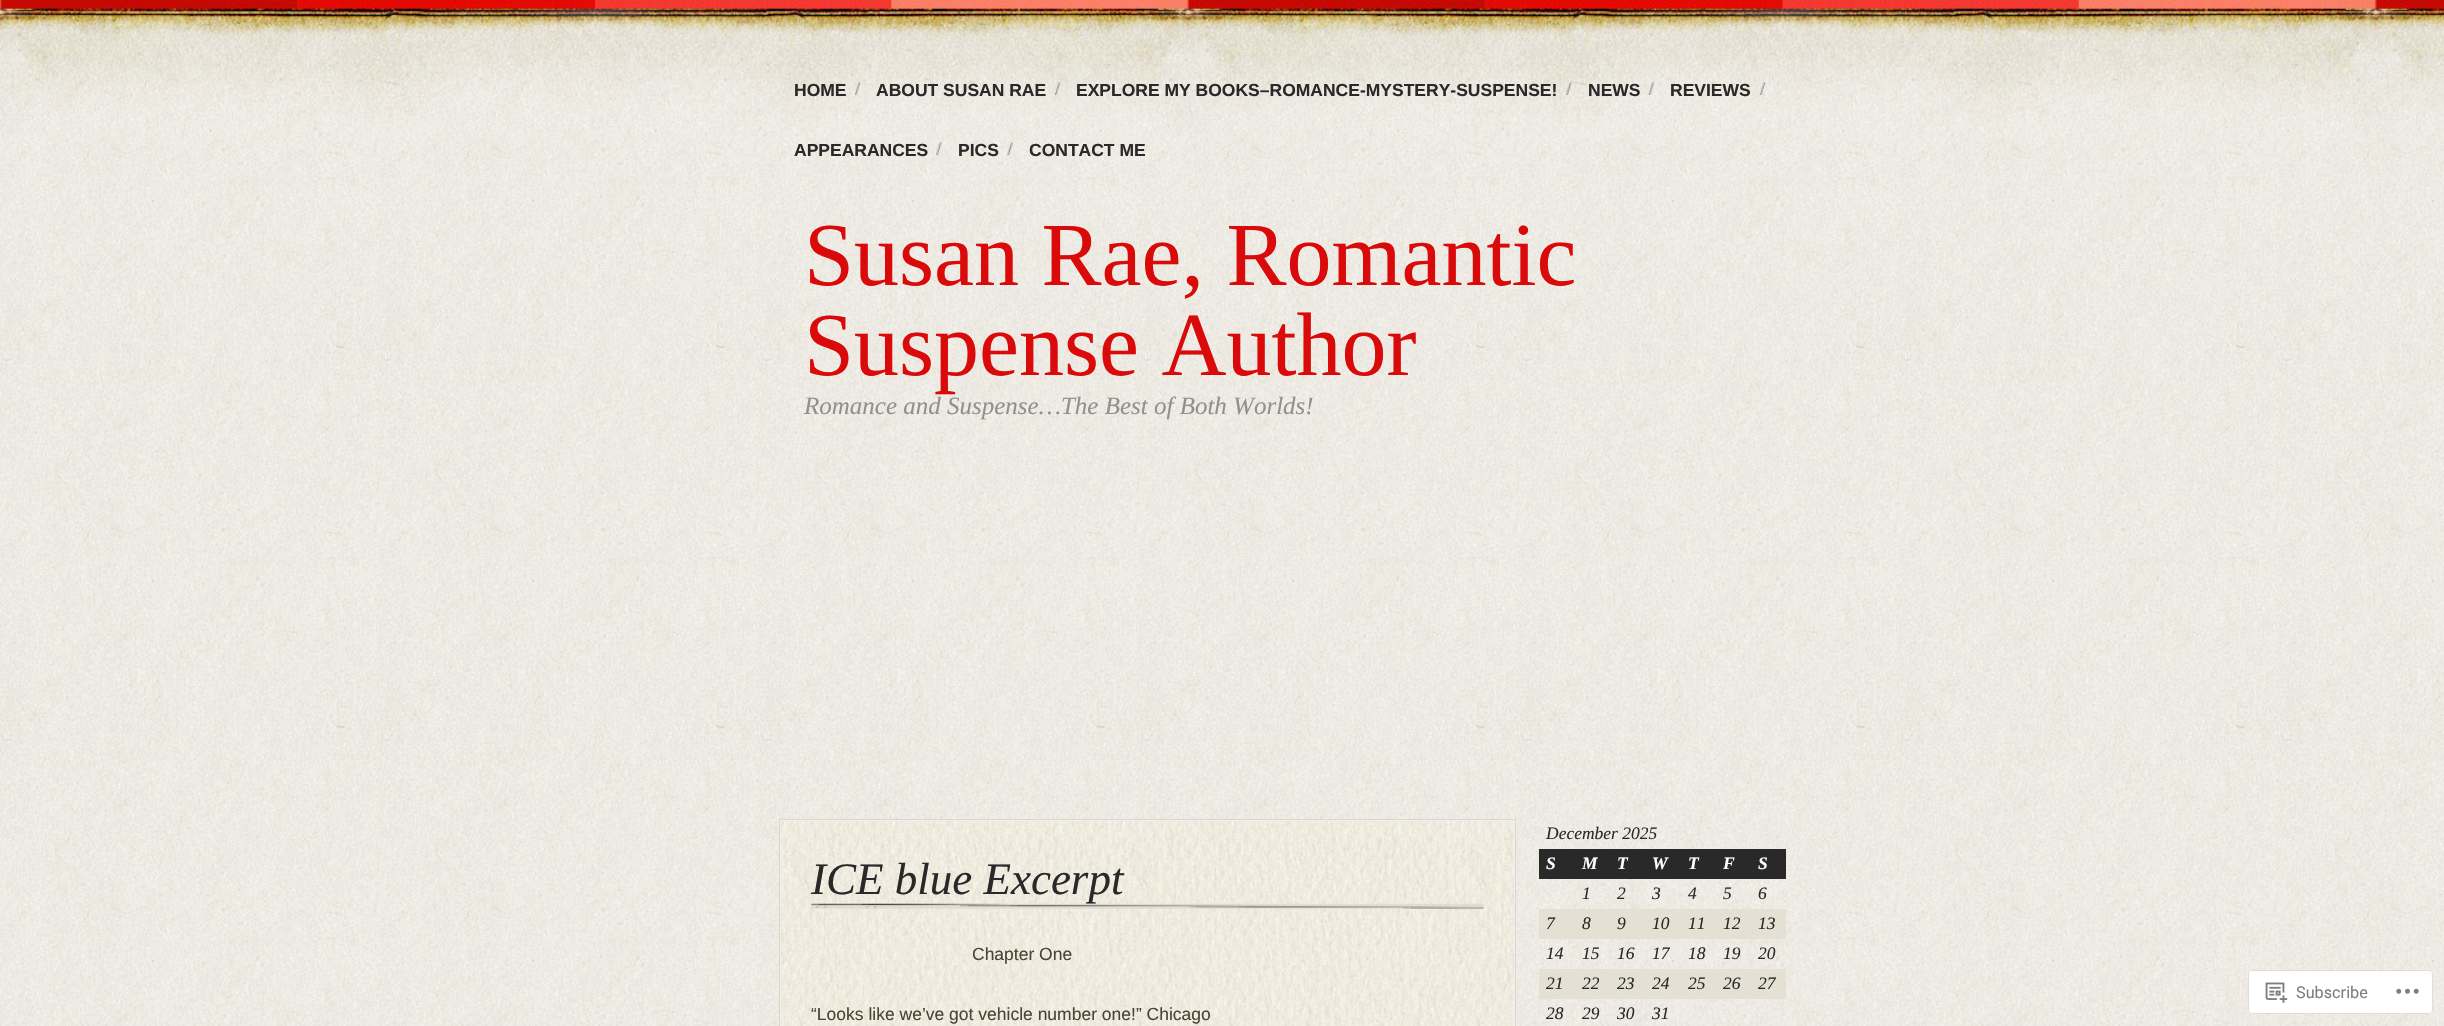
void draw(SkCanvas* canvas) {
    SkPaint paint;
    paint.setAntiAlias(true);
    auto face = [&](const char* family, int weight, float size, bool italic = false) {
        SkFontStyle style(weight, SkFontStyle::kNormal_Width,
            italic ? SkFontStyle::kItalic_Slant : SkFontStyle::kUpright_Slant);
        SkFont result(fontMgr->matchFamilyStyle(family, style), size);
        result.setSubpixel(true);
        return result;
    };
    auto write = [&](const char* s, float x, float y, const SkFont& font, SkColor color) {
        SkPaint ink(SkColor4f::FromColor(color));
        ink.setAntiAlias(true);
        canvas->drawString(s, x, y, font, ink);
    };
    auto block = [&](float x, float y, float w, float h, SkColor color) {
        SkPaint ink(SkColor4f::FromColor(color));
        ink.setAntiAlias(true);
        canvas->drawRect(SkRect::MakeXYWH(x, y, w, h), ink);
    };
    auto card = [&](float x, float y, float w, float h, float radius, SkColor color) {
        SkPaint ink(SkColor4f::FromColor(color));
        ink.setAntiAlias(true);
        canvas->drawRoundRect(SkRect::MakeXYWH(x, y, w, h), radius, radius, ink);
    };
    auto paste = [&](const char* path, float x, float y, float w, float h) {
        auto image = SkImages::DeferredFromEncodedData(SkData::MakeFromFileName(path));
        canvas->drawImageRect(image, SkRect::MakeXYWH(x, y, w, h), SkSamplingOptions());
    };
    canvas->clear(SK_ColorWHITE);
    paste("pic1.png", 0, 137, 2444, 889);
    paste("pic2.png", 0, 0, 2444, 138);
    paste("pic3.png", 854, 82, 7, 13);
    auto kFont1 = face("Liberation Sans", 700, 17.5f);
    write("HOME", 794, 96, kFont1, SkColorSetRGB(41, 41, 41));
    paste("pic4.png", 1054, 82, 7, 13);
    write("ABOUT SUSAN RAE", 876, 96, kFont1, SkColorSetRGB(41, 41, 41));
    paste("pic5.png", 1566, 82, 6, 13);
    write("EXPLORE MY BOOKS–ROMANCE-MYSTERY-SUSPENSE!", 1076, 96, kFont1, SkColorSetRGB(41, 41, 41));
    paste("pic6.png", 1648, 82, 6, 13);
    write("NEWS", 1588, 96, kFont1, SkColorSetRGB(41, 41, 41));
    paste("pic7.png", 1759, 82, 7, 13);
    write("REVIEWS", 1670, 96, kFont1, SkColorSetRGB(41, 41, 41));
    paste("pic8.png", 936, 142, 6, 13);
    write("APPEARANCES", 794, 156, kFont1, SkColorSetRGB(41, 41, 41));
    paste("pic9.png", 1007, 142, 6, 13);
    write("PICS", 958, 156, kFont1, SkColorSetRGB(41, 41, 41));
    write("CONTACT ME", 1029, 156, kFont1, SkColorSetRGB(41, 41, 41));
    auto kFont2 = face("Liberation Serif", 400, 90);
    write("Susan Rae, Romantic", 804, 285, kFont2, SkColorSetRGB(218, 10, 10));
    write("Suspense Author", 804, 375, kFont2, SkColorSetRGB(218, 10, 10));
    auto kFont3 = face("Liberation Serif", 400, 25, true);
    write("Romance and Suspense…The Best of Both Worlds!", 804, 414, kFont3, SkColorSetRGB(144, 144, 144));
    paint.setStyle(SkPaint::kStroke_Style);
    paint.setStrokeWidth(1);
    paint.setColor(SkColorSetRGB(216, 215, 212));
    canvas->drawRect(SkRect::MakeXYWH(779.5f, 819.5f, 736, 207), paint);
    paste("pic10.png", 781, 821, 733, 205);
    paint.setColor(SkColorSetRGB(240, 239, 228));
    canvas->drawRect(SkRect::MakeXYWH(780.5f, 820.5f, 734, 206), paint);
    paste("pic11.png", 811, 903, 673, 6);
    auto kFont4 = face("Liberation Serif", 400, 45, true);
    write("ICE blue Excerpt", 811, 894, kFont4, SkColorSetRGB(41, 41, 41));
    auto kFont5 = face("Liberation Sans", 400, 17.5f);
    write("Chapter One", 972, 960, kFont5, SkColorSetRGB(71, 69, 52));
    write("“Looks like we’ve got vehicle number one!” Chicago", 811, 1020, kFont5, SkColorSetRGB(71, 69, 52));
    auto kFont6 = face("Liberation Serif", 400, 17.5f, true);
    write("December 2025", 1546, 839, kFont6, SkColorSetRGB(41, 41, 41));
    block(1539, 849, 247, 30, SkColorSetRGB(41, 41, 41));
    auto kFont7 = face("Liberation Serif", 700, 17.5f, true);
    write("S", 1546, 869, kFont7, SK_ColorWHITE);
    write("M", 1582, 869, kFont7, SK_ColorWHITE);
    write("T", 1617, 869, kFont7, SK_ColorWHITE);
    write("W", 1652, 869, kFont7, SK_ColorWHITE);
    write("T", 1688, 869, kFont7, SK_ColorWHITE);
    write("F", 1723, 869, kFont7, SK_ColorWHITE);
    write("S", 1758, 869, kFont7, SK_ColorWHITE);
    write("1", 1582, 899, kFont6, SkColorSetRGB(41, 41, 41));
    write("2", 1617, 899, kFont6, SkColorSetRGB(41, 41, 41));
    write("3", 1652, 899, kFont6, SkColorSetRGB(41, 41, 41));
    write("4", 1688, 899, kFont6, SkColorSetRGB(41, 41, 41));
    write("5", 1723, 899, kFont6, SkColorSetRGB(41, 41, 41));
    write("6", 1758, 899, kFont6, SkColorSetRGB(41, 41, 41));
    block(1539, 909, 247, 30, SkColorSetRGB(228, 224, 212));
    write("7", 1546, 929, kFont6, SkColorSetRGB(41, 41, 41));
    write("8", 1582, 929, kFont6, SkColorSetRGB(41, 41, 41));
    write("9", 1617, 929, kFont6, SkColorSetRGB(41, 41, 41));
    write("10", 1652, 929, kFont6, SkColorSetRGB(41, 41, 41));
    write("11", 1688, 929, kFont6, SkColorSetRGB(41, 41, 41));
    write("12", 1723, 929, kFont6, SkColorSetRGB(41, 41, 41));
    write("13", 1758, 929, kFont6, SkColorSetRGB(41, 41, 41));
    write("14", 1546, 959, kFont6, SkColorSetRGB(41, 41, 41));
    write("15", 1582, 959, kFont6, SkColorSetRGB(41, 41, 41));
    write("16", 1617, 959, kFont6, SkColorSetRGB(41, 41, 41));
    write("17", 1652, 959, kFont6, SkColorSetRGB(41, 41, 41));
    write("18", 1688, 959, kFont6, SkColorSetRGB(41, 41, 41));
    write("19", 1723, 959, kFont6, SkColorSetRGB(41, 41, 41));
    write("20", 1758, 959, kFont6, SkColorSetRGB(41, 41, 41));
    block(1539, 969, 247, 30, SkColorSetRGB(228, 224, 212));
    write("21", 1546, 989, kFont6, SkColorSetRGB(41, 41, 41));
    write("22", 1582, 989, kFont6, SkColorSetRGB(41, 41, 41));
    write("23", 1617, 989, kFont6, SkColorSetRGB(41, 41, 41));
    write("24", 1652, 989, kFont6, SkColorSetRGB(41, 41, 41));
    write("25", 1688, 989, kFont6, SkColorSetRGB(41, 41, 41));
    write("26", 1723, 989, kFont6, SkColorSetRGB(41, 41, 41));
    write("27", 1758, 989, kFont6, SkColorSetRGB(41, 41, 41));
    write("28", 1546, 1019, kFont6, SkColorSetRGB(41, 41, 41));
    write("29", 1582, 1019, kFont6, SkColorSetRGB(41, 41, 41));
    write("30", 1617, 1019, kFont6, SkColorSetRGB(41, 41, 41));
    write("31", 1652, 1019, kFont6, SkColorSetRGB(41, 41, 41));
    card(2248, 970, 185, 44, 4, SkColorSetARGB(250, 255, 255, 255));
    paint.setColor(SkColorSetARGB(250, 220, 220, 222));
    canvas->drawRoundRect(SkRect::MakeXYWH(2248.5f, 970.5f, 184, 43), 3.5f, 3.5f, paint);
    paste("pic12.png", 2265, 982, 23, 21);
    auto kFont8 = face("Roboto", 400, 16.25f);
    write("Subscribe", 2296, 998, kFont8, SkColorSetRGB(123, 127, 132));
    paste("pic13.png", 2396, 988, 23, 6);
}
